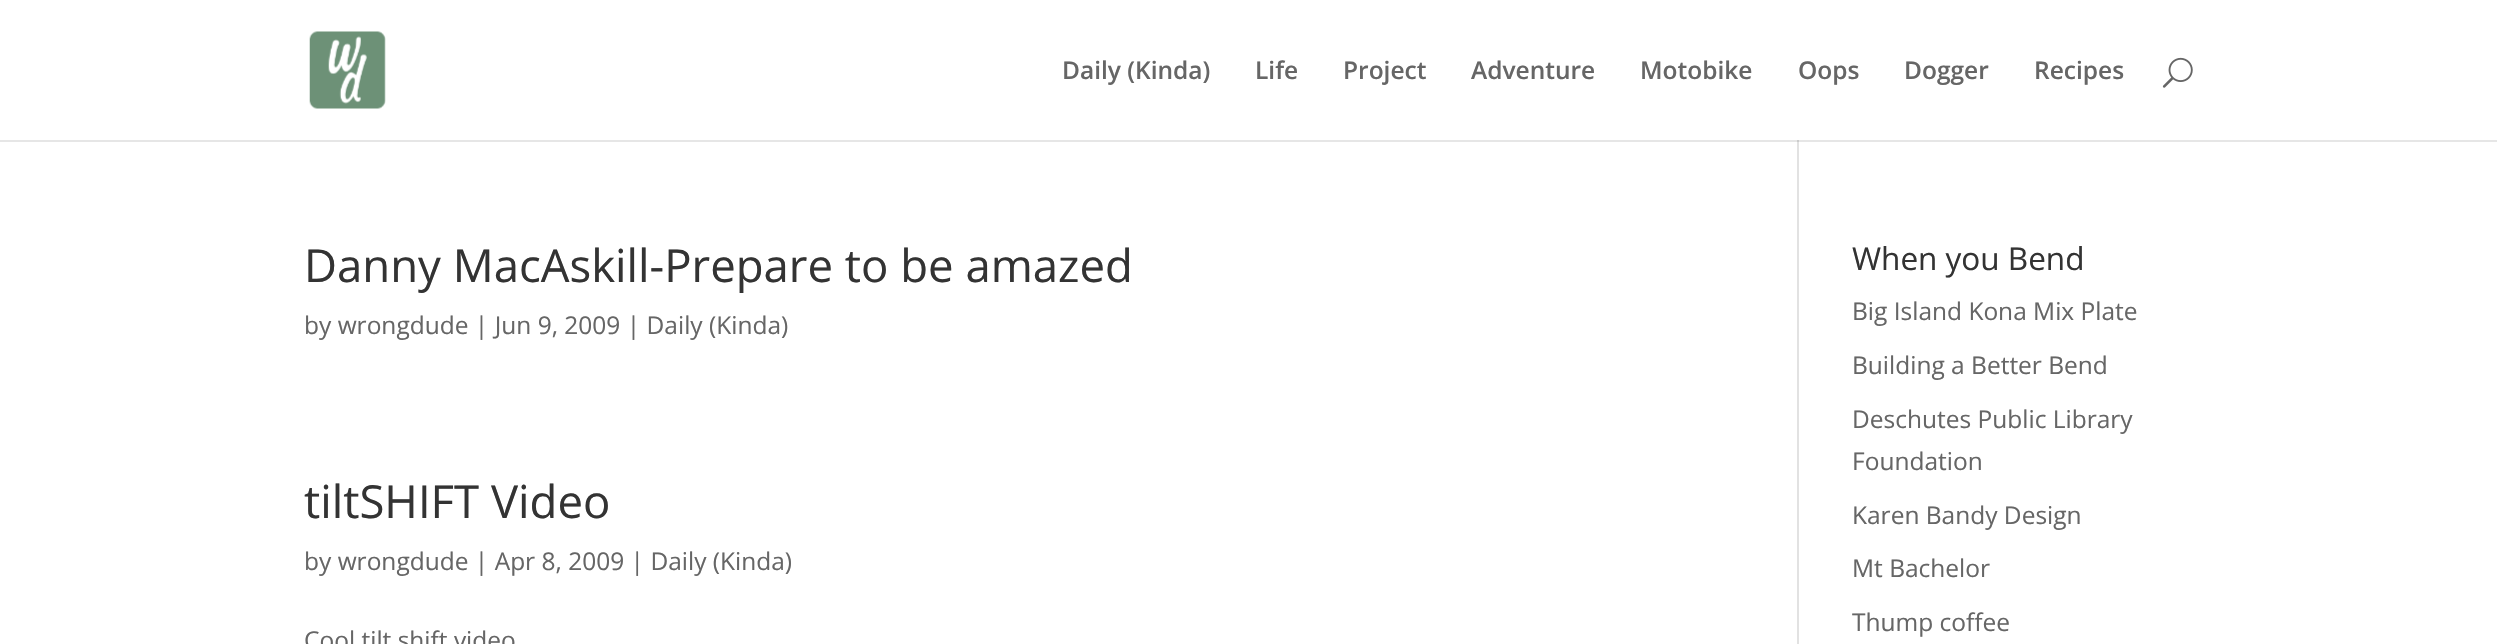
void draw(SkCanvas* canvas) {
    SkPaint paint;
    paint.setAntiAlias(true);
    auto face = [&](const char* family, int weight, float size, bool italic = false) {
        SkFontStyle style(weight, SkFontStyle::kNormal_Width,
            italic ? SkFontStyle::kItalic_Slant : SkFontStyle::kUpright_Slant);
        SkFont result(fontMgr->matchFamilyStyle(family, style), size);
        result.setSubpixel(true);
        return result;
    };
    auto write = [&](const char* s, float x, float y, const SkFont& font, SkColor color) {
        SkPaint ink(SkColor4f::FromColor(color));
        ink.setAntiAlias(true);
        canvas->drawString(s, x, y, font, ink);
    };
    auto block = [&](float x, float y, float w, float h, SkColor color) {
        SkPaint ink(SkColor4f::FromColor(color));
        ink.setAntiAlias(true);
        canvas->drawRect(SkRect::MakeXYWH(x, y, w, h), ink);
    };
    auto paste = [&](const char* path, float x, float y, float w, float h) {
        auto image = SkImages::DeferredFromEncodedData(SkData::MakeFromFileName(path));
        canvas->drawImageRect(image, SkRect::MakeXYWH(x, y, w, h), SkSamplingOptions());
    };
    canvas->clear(SK_ColorWHITE);
    block(0, 140, 2497, 2, SkColorSetRGB(230, 230, 230));
    paste("pic1.png", 309, 31, 77, 78);
    auto kFont1 = face("Open Sans", 600, 24.5f);
    write("Daily (Kinda)", 1062, 79, kFont1, SkColorSetRGB(102, 102, 102));
    write("Life", 1255, 79, kFont1, SkColorSetRGB(102, 102, 102));
    write("Project", 1343, 79, kFont1, SkColorSetRGB(102, 102, 102));
    write("Adventure", 1471, 79, kFont1, SkColorSetRGB(102, 102, 102));
    write("Motobike", 1640, 79, kFont1, SkColorSetRGB(102, 102, 102));
    write("Oops", 1798, 79, kFont1, SkColorSetRGB(102, 102, 102));
    write("Dogger", 1904, 79, kFont1, SkColorSetRGB(102, 102, 102));
    write("Recipes", 2034, 79, kFont1, SkColorSetRGB(102, 102, 102));
    paste("pic2.png", 2162, 57, 31, 31);
    block(1797, 140, 2, 504, SkColorSetRGB(226, 226, 226));
    block(1797, 140, 2, 2, SkColorSetRGB(203, 203, 203));
    auto kFont2 = face("Open Sans", 400, 45.5f);
    write("Danny MacAskill-Prepare to be amazed", 304, 282, kFont2, SkColorSetRGB(51, 51, 51));
    auto kFont3 = face("Open Sans", 400, 24.5f);
    write("by wrongdude | Jun 9, 2009 | Daily (Kinda)", 304, 334, kFont3, SkColorSetRGB(102, 102, 102));
    write("tiltSHIFT Video", 304, 518, kFont2, SkColorSetRGB(51, 51, 51));
    write("by wrongdude | Apr 8, 2009 | Daily (Kinda)", 304, 570, kFont3, SkColorSetRGB(102, 102, 102));
    write("Cool tilt shift video", 304, 649, kFont3, SkColorSetRGB(102, 102, 102));
    auto kFont4 = face("Open Sans", 400, 31.5f);
    write("When you Bend", 1852, 270, kFont4, SkColorSetRGB(51, 51, 51));
    write("Big Island Kona Mix Plate", 1852, 320, kFont3, SkColorSetRGB(102, 102, 102));
    write("Building a Better Bend", 1852, 374, kFont3, SkColorSetRGB(102, 102, 102));
    write("Deschutes Public Library", 1852, 428, kFont3, SkColorSetRGB(102, 102, 102));
    write("Foundation", 1852, 470, kFont3, SkColorSetRGB(102, 102, 102));
    write("Karen Bandy Design", 1852, 524, kFont3, SkColorSetRGB(102, 102, 102));
    write("Mt Bachelor", 1852, 577, kFont3, SkColorSetRGB(102, 102, 102));
    write("Thump coffee", 1852, 631, kFont3, SkColorSetRGB(102, 102, 102));
}
